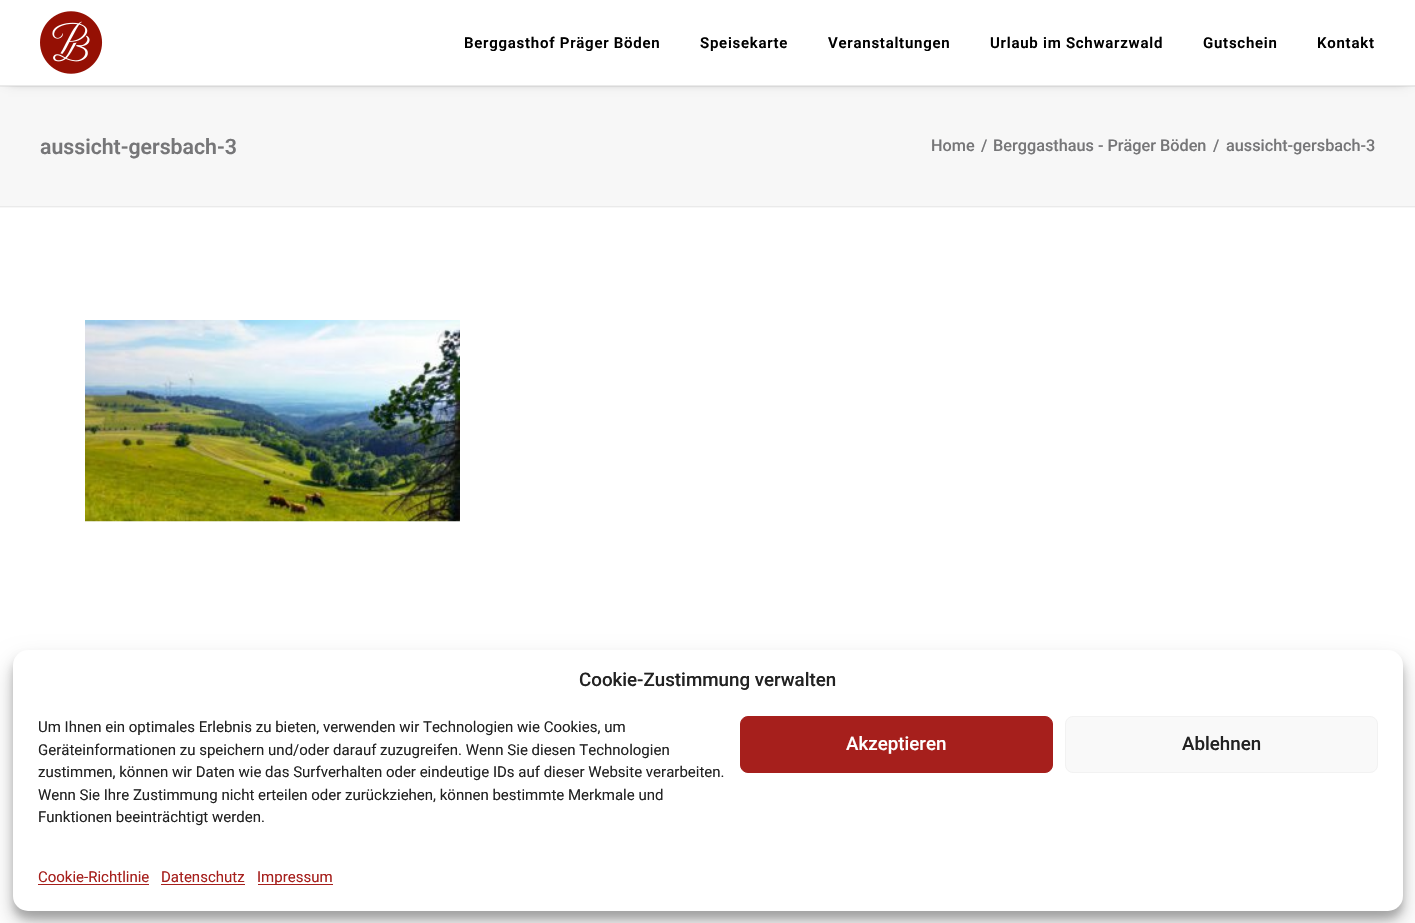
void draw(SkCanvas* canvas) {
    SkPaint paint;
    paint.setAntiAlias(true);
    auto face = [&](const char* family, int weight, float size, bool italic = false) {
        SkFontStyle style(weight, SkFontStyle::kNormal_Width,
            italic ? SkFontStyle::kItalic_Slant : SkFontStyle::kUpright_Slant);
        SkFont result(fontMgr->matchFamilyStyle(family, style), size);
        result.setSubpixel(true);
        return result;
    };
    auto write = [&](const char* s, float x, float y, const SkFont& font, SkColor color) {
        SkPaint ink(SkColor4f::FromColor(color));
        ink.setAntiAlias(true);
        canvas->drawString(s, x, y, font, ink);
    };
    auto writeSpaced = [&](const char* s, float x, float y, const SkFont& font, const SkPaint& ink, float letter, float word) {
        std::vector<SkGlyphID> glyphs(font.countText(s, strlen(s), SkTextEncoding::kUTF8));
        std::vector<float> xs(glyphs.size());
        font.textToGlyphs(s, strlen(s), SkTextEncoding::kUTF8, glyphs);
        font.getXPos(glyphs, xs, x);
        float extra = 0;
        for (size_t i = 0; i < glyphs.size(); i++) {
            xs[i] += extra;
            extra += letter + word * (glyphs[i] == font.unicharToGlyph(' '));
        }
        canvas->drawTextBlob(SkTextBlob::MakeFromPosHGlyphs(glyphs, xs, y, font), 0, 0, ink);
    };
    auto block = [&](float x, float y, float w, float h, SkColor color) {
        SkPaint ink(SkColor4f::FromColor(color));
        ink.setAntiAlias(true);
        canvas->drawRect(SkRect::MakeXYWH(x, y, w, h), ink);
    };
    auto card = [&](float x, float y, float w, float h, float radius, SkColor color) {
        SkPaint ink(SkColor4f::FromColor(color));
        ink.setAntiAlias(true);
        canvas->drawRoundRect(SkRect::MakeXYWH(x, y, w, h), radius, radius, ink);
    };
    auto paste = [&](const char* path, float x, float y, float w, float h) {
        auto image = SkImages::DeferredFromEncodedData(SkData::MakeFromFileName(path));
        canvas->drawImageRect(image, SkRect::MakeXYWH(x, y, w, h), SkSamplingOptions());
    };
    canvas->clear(SkColorSetRGB(247, 247, 247));
    block(0, 86, 1415, 1, SkColorSetRGB(234, 234, 234));
    paint.setColor(SkColorSetARGB(153, 0, 0, 0));
    paint.setMaskFilter(SkMaskFilter::MakeBlur(kNormal_SkBlurStyle, 6));
    canvas->drawRect(SkRect::MakeXYWH(8, 18, 1400, 61), paint);
    paint.setMaskFilter(nullptr);
    block(0, 0, 1415, 85, SK_ColorWHITE);
    block(0, 85, 1415, 1, SkColorSetRGB(234, 234, 234));
    paste("pic1.png", 40, 11, 63, 63);
    auto kFont1 = face("Roboto", 600, 15);
    paint.setColor(SK_ColorBLACK);
    writeSpaced("Berggasthof Präger Böden", 464, 48, kFont1, paint, 0.75f, 0);
    writeSpaced("Speisekarte", 700, 48, kFont1, paint, 0.75f, 0);
    writeSpaced("Veranstaltungen", 828, 48, kFont1, paint, 0.75f, 0);
    writeSpaced("Urlaub im Schwarzwald", 990, 48, kFont1, paint, 0.75f, 0);
    writeSpaced("Gutschein", 1203, 48, kFont1, paint, 0.75f, 0);
    writeSpaced("Kontakt", 1317, 48, kFont1, paint, 0.75f, 0);
    block(0, 206, 1415, 1, SkColorSetRGB(234, 234, 234));
    auto kFont2 = face("Roboto", 600, 21.25f);
    write("aussicht-gersbach-3", 40, 154, kFont2, SkColorSetRGB(118, 118, 120));
    auto kFont3 = face("Roboto", 500, 16.25f);
    write("Home", 931, 151, kFont3, SkColorSetRGB(118, 118, 120));
    write("/", 981, 151, kFont3, SkColorSetRGB(118, 118, 120));
    write("Berggasthaus - Präger Böden", 993, 151, kFont3, SkColorSetRGB(118, 118, 120));
    write("/", 1213, 151, kFont3, SkColorSetRGB(118, 118, 120));
    write("aussicht-gersbach-3", 1226, 151, kFont3, SkColorSetRGB(118, 118, 120));
    block(0, 208, 1415, 715, SK_ColorWHITE);
    paste("pic2.png", 85, 320, 375, 202);
    paint.setColor(SkColorSetARGB(59, 0, 0, 0));
    paint.setMaskFilter(SkMaskFilter::MakeBlur(kNormal_SkBlurStyle, 4));
    canvas->drawRoundRect(SkRect::MakeXYWH(13, 658, 1390, 261), 15, 15, paint);
    paint.setMaskFilter(nullptr);
    paint.setColor(SkColorSetARGB(48, 0, 0, 0));
    paint.setMaskFilter(SkMaskFilter::MakeBlur(kNormal_SkBlurStyle, 12.5f));
    canvas->drawRoundRect(SkRect::MakeXYWH(13, 663, 1390, 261), 15, 15, paint);
    paint.setMaskFilter(nullptr);
    card(13, 650, 1390, 261, 15, SK_ColorWHITE);
    auto kFont4 = face("Roboto", 500, 18.75f);
    write("Cookie-Zustimmung verwalten", 579, 686, kFont4, SkColorSetRGB(34, 34, 34));
    auto kFont5 = face("Roboto", 400, 15);
    write("Um Ihnen ein optimales Erlebnis zu bieten, verwenden wir Technologien wie Cookies, um", 38, 732, kFont5, SkColorSetRGB(34, 34, 34));
    write("Geräteinformationen zu speichern und/oder darauf zuzugreifen. Wenn Sie diesen Technologien", 38, 755, kFont5, SkColorSetRGB(34, 34, 34));
    write("zustimmen, können wir Daten wie das Surfverhalten oder eindeutige IDs auf dieser Website verarbeiten.", 38, 777, kFont5, SkColorSetRGB(34, 34, 34));
    write("Wenn Sie Ihre Zustimmung nicht erteilen oder zurückziehen, können bestimmte Merkmale und", 38, 800, kFont5, SkColorSetRGB(34, 34, 34));
    write("Funktionen beeinträchtigt werden.", 38, 822, kFont5, SkColorSetRGB(34, 34, 34));
    paint.setColor(SkColorSetRGB(166, 31, 28));
    canvas->drawRoundRect(SkRect::MakeXYWH(740.5f, 716.5f, 312, 56), 7.5f, 7.5f, paint);
    paint.setStyle(SkPaint::kStroke_Style);
    paint.setStrokeWidth(1);
    canvas->drawRoundRect(SkRect::MakeXYWH(740.5f, 716.5f, 312, 56), 7.5f, 7.5f, paint);
    write("Akzeptieren", 846, 750, kFont4, SK_ColorWHITE);
    paint.setStyle(SkPaint::kFill_Style);
    paint.setColor(SkColorSetRGB(249, 249, 249));
    canvas->drawRoundRect(SkRect::MakeXYWH(1065.5f, 716.5f, 312, 56), 7.5f, 7.5f, paint);
    paint.setStyle(SkPaint::kStroke_Style);
    paint.setColor(SkColorSetRGB(242, 242, 242));
    canvas->drawRoundRect(SkRect::MakeXYWH(1065.5f, 716.5f, 312, 56), 7.5f, 7.5f, paint);
    write("Ablehnen", 1182, 750, kFont4, SkColorSetRGB(34, 34, 34));
    write("Cookie-Richtlinie", 38, 882, kFont5, SkColorSetRGB(166, 31, 28));
    block(38, 884, 111, 1, SkColorSetRGB(166, 31, 28));
    write("Datenschutz", 161, 882, kFont5, SkColorSetRGB(166, 31, 28));
    block(161, 884, 84, 1, SkColorSetRGB(166, 31, 28));
    block(258, 884, 75, 1, SkColorSetRGB(166, 31, 28));
    write("Impressum", 257, 882, kFont5, SkColorSetRGB(166, 31, 28));
}
